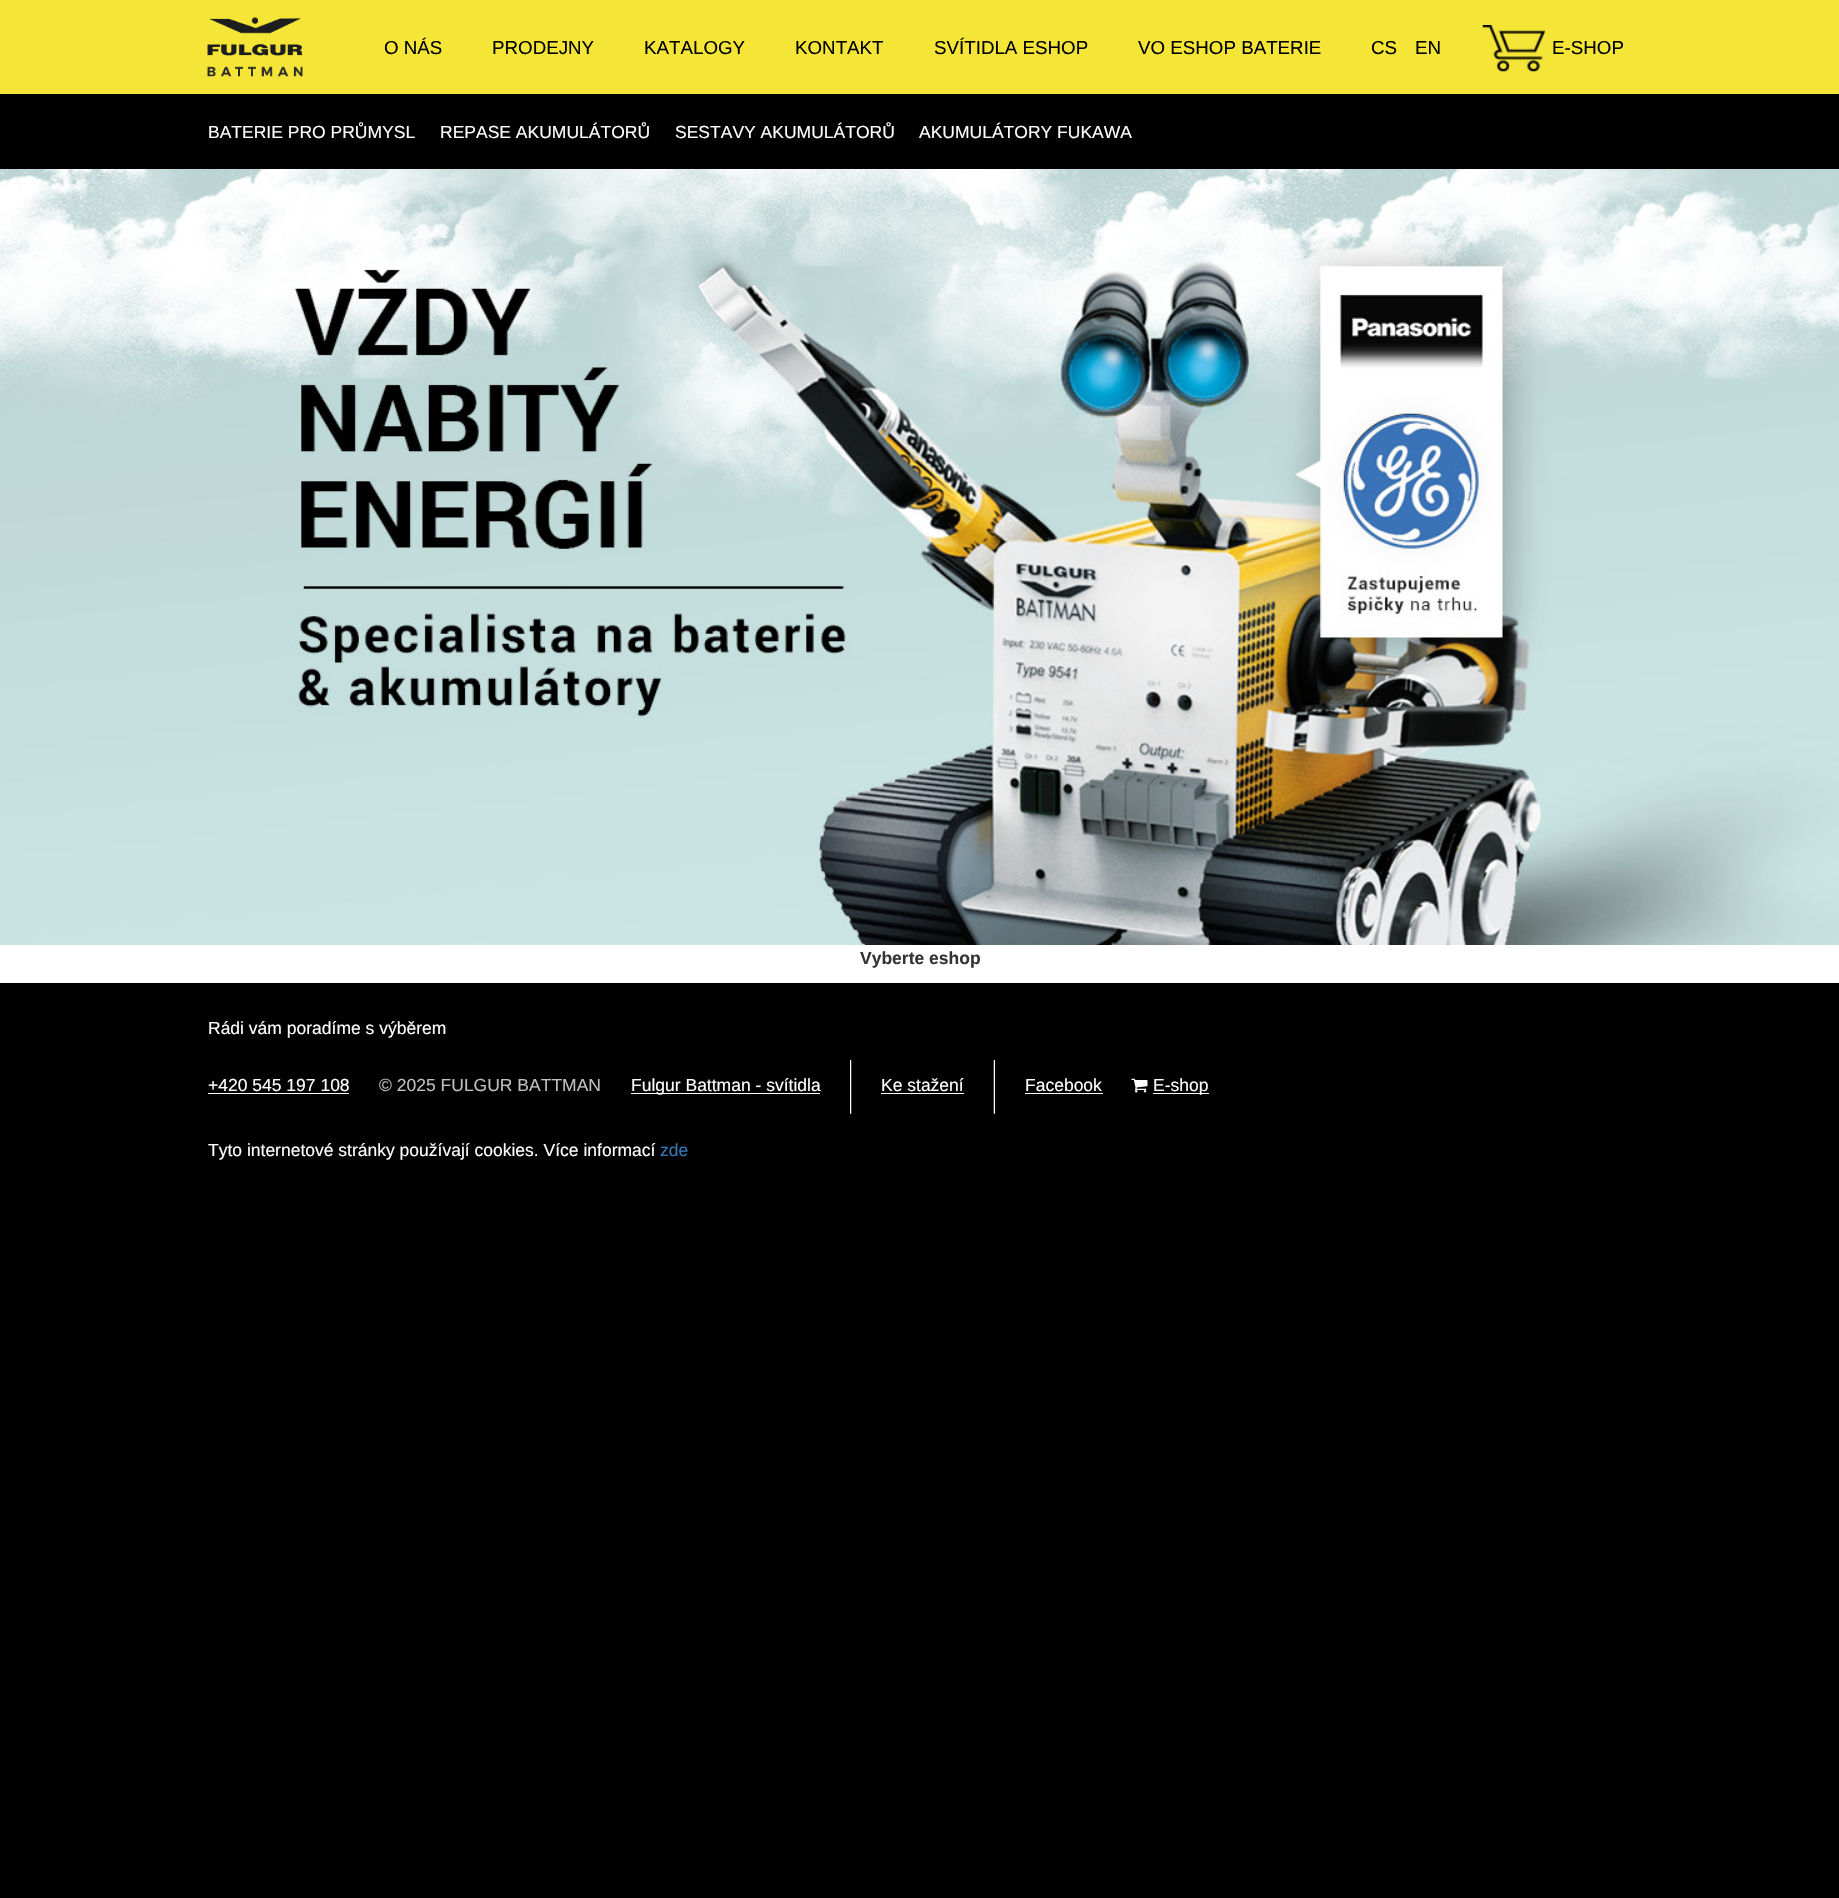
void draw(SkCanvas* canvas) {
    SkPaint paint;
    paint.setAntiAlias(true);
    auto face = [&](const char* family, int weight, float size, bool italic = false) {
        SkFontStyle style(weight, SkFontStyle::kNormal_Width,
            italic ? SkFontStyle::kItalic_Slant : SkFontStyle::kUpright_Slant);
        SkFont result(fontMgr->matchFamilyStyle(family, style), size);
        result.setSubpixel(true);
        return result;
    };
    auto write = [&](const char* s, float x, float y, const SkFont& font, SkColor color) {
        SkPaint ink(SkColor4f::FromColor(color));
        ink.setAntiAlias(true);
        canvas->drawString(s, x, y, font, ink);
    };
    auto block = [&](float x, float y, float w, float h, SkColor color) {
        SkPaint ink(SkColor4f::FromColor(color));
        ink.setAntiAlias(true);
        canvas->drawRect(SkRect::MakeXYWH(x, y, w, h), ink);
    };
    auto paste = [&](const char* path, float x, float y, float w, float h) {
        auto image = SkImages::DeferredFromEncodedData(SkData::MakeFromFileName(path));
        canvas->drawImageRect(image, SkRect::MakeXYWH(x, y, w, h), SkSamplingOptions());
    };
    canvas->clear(SK_ColorBLACK);
    block(0, 0, 1839, 94, SkColorSetRGB(244, 229, 55));
    paste("pic1.png", 207, 17, 96, 60);
    auto kFont1 = face("Liberation Sans", 400, 18.75f);
    write("O NÁS", 384, 54, kFont1, SK_ColorBLACK);
    write("PRODEJNY", 492, 54, kFont1, SK_ColorBLACK);
    write("KATALOGY", 644, 54, kFont1, SK_ColorBLACK);
    write("KONTAKT", 795, 54, kFont1, SK_ColorBLACK);
    write("SVÍTIDLA ESHOP", 934, 54, kFont1, SK_ColorBLACK);
    write("VO ESHOP BATERIE", 1138, 54, kFont1, SK_ColorBLACK);
    write("CS", 1371, 54, kFont1, SK_ColorBLACK);
    write("EN", 1415, 54, kFont1, SK_ColorBLACK);
    paste("pic2.png", 1482, 25, 63, 47);
    write("E-SHOP", 1552, 54, kFont1, SK_ColorBLACK);
    auto kFont2 = face("Liberation Sans", 400, 17.5f);
    write("BATERIE PRO PRŮMYSL", 208, 138, kFont2, SK_ColorWHITE);
    write("REPASE AKUMULÁTORŮ", 440, 138, kFont2, SK_ColorWHITE);
    write("SESTAVY AKUMULÁTORŮ", 675, 138, kFont2, SK_ColorWHITE);
    write("AKUMULÁTORY FUKAWA", 919, 138, kFont2, SK_ColorWHITE);
    paste("pic3.png", 0, 169, 1839, 776);
    block(0, 945, 1839, 38, SK_ColorWHITE);
    auto kFont3 = face("Liberation Sans", 700, 17.5f);
    write("Vyberte eshop", 860, 964, kFont3, SkColorSetRGB(51, 51, 51));
    write("Rádi vám poradíme s výběrem", 208, 1034, kFont2, SK_ColorWHITE);
    write("+420 545 197 108", 208, 1091, kFont2, SK_ColorWHITE);
    block(208, 1093, 141, 1, SK_ColorWHITE);
    write("© 2025 FULGUR BATTMAN", 379, 1091, kFont2, SkColorSetRGB(192, 192, 192));
    block(631, 1093, 189, 1, SK_ColorWHITE);
    write("Fulgur Battman - svítidla", 631, 1091, kFont2, SK_ColorWHITE);
    paste("pic4.png", 850, 1060, 2, 54);
    write("Ke stažení", 881, 1091, kFont2, SK_ColorWHITE);
    block(881, 1093, 83, 1, SK_ColorWHITE);
    paste("pic5.png", 993, 1060, 2, 54);
    write("Facebook", 1025, 1091, kFont2, SK_ColorWHITE);
    block(1025, 1093, 78, 1, SK_ColorWHITE);
    paste("pic6.png", 1131, 1078, 17, 15);
    block(1153, 1093, 56, 1, SK_ColorWHITE);
    write("E-shop", 1153, 1091, kFont2, SK_ColorWHITE);
    write("Tyto internetové stránky používají cookies. Více informací", 208, 1156, kFont2, SK_ColorWHITE);
    write("zde", 660, 1156, kFont2, SkColorSetRGB(51, 122, 183));
}
